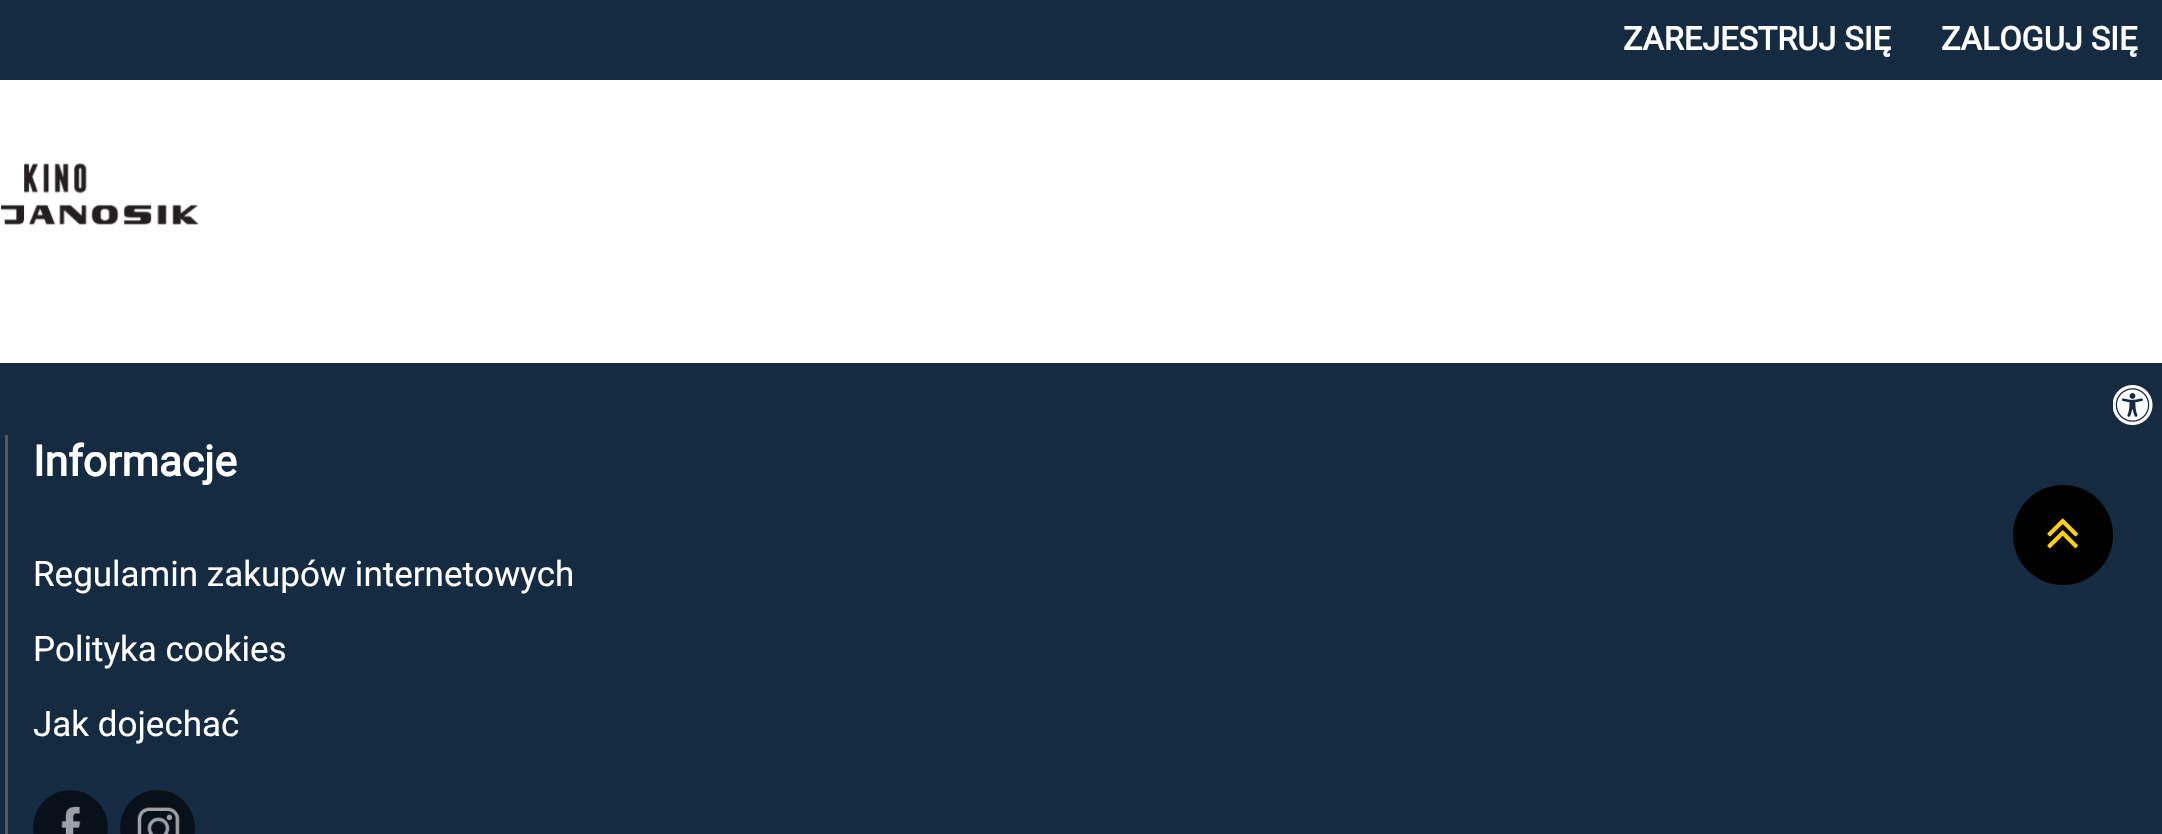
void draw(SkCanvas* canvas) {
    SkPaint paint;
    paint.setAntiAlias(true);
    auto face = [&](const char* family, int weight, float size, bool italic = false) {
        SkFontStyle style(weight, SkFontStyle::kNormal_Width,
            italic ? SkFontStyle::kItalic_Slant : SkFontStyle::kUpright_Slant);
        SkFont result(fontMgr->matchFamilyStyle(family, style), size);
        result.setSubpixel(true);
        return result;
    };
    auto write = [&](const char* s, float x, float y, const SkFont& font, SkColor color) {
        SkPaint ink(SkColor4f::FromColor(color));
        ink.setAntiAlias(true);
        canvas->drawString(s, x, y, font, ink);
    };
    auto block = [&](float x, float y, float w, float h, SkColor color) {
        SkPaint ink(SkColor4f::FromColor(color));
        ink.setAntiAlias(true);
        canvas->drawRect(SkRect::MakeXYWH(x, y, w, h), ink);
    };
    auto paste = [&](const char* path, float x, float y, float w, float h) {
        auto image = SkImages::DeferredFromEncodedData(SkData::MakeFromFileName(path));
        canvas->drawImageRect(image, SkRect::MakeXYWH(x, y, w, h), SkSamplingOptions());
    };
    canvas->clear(SkColorSetRGB(20, 43, 66));
    auto kFont1 = face("Roboto", 700, 32.5f);
    write("ZAREJESTRUJ SIĘ", 1623, 50, kFont1, SK_ColorWHITE);
    write("ZALOGUJ SIĘ", 1941, 50, kFont1, SK_ColorWHITE);
    paste("pic1.png", 2113, 385, 40, 40);
    block(0, 80, 2162, 283, SK_ColorWHITE);
    paste("pic2.png", 1, 162, 198, 63);
    block(5, 435, 3, 399, SkColorSetRGB(90, 90, 90));
    auto kFont2 = face("Roboto", 700, 42.5f);
    write("Informacje", 33, 476, kFont2, SK_ColorWHITE);
    auto kFont3 = face("Roboto", 400, 35);
    write("Regulamin zakupów internetowych", 33, 586, kFont3, SK_ColorWHITE);
    write("Polityka cookies", 33, 661, kFont3, SK_ColorWHITE);
    write("Jak dojechać", 33, 736, kFont3, SK_ColorWHITE);
    paint.setColor(SkColorSetRGB(8, 17, 26));
    canvas->drawCircle(70.5f, 827.5f, 37.5f, paint);
    paste("pic3.png", 61, 806, 20, 28);
    canvas->drawCircle(157.5f, 827.5f, 37.5f, paint);
    paste("pic4.png", 137, 807, 43, 27);
    paint.setColor(SK_ColorBLACK);
    canvas->drawCircle(2063, 535, 50, paint);
    paint.setColor(SkColorSetARGB(102, 0, 0, 0));
    canvas->drawCircle(2063, 535, 50, paint);
    paste("pic5.png", 2047, 518, 31, 31);
}
